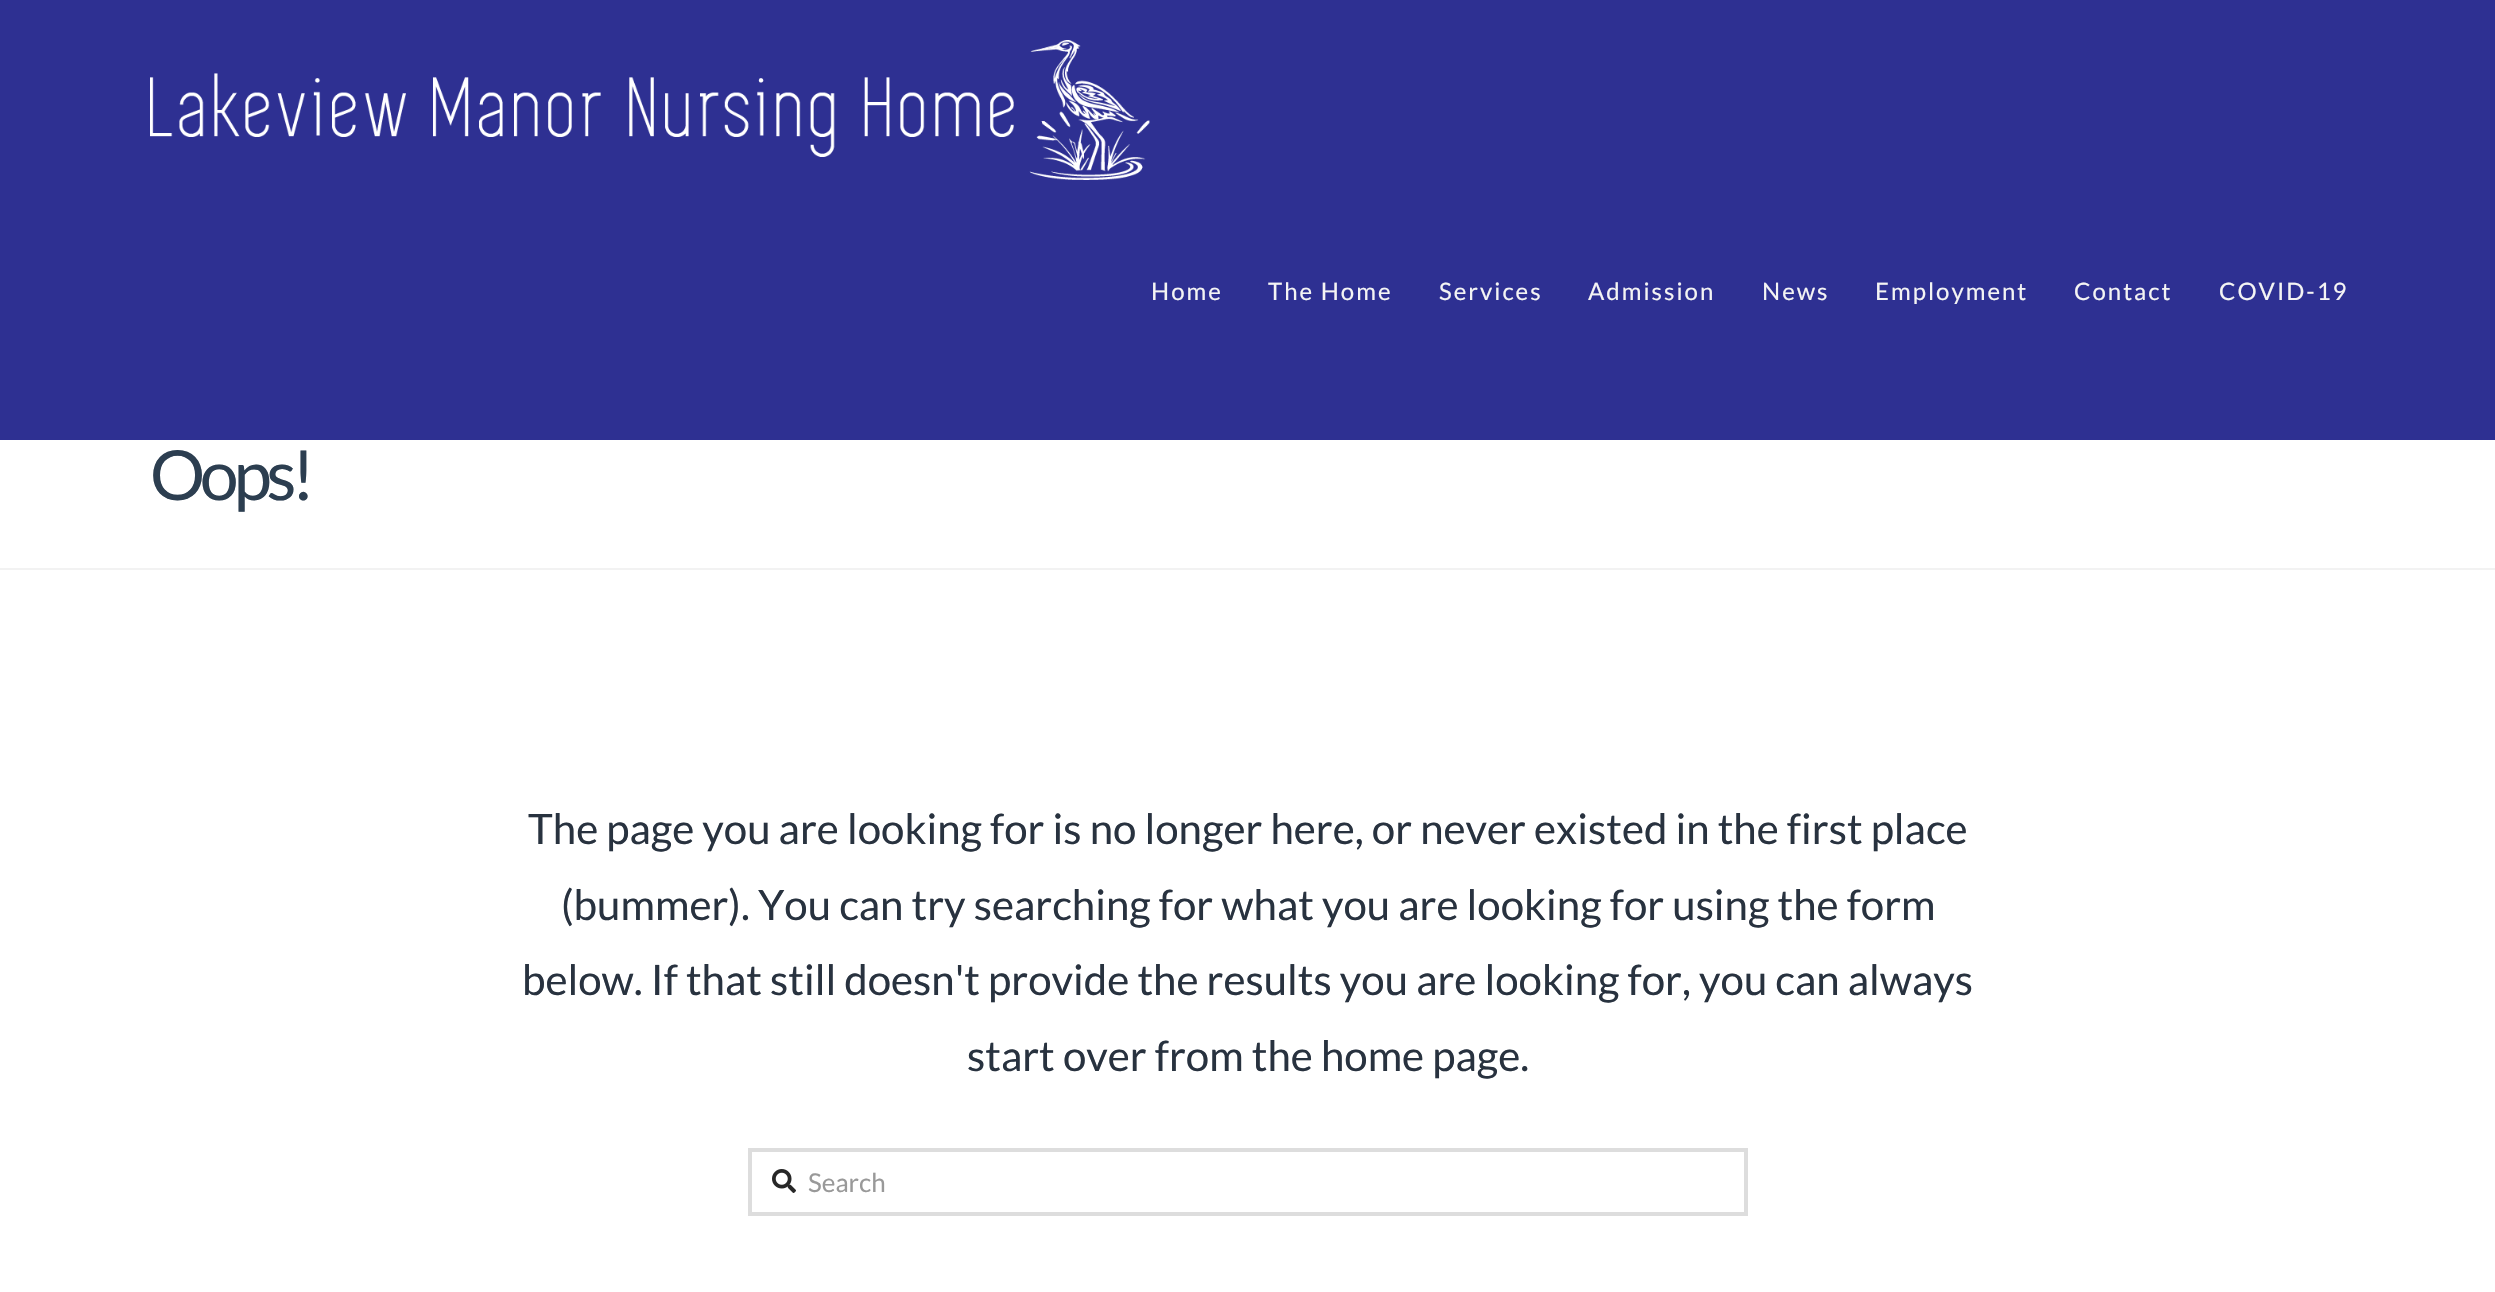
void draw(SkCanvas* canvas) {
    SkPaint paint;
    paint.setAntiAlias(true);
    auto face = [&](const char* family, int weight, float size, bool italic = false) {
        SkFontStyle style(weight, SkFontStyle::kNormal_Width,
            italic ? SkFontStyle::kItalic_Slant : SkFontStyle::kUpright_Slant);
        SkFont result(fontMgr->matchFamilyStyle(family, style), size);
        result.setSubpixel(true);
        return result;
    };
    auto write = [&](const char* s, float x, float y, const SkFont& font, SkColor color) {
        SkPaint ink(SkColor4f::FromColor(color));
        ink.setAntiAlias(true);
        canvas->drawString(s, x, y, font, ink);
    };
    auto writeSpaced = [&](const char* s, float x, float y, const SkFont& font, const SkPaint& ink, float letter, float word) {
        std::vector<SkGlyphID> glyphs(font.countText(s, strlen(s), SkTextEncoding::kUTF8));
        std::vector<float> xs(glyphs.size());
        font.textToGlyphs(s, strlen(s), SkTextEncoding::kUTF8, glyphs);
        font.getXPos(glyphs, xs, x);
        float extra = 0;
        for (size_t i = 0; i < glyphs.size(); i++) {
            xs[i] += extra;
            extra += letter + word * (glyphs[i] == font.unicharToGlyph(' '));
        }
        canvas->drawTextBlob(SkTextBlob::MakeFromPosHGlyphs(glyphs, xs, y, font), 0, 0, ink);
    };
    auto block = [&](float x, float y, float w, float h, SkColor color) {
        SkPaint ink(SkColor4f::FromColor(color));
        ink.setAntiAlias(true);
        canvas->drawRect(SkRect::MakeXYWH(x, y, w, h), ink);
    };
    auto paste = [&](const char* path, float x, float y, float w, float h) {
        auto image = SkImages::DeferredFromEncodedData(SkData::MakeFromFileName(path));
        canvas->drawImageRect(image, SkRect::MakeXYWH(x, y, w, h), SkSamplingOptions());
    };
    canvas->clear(SK_ColorWHITE);
    block(0, 0, 2495, 440, SkColorSetRGB(46, 48, 146));
    paste("pic1.png", 150, 40, 1000, 140);
    auto kFont1 = face("Lato", 400, 24);
    paint.setColor(SkColorSetRGB(244, 244, 244));
    writeSpaced("Home", 1151, 300, kFont1, paint, 2, 0);
    writeSpaced("The Home", 1268, 300, kFont1, paint, 2, 0);
    writeSpaced("Services", 1439, 300, kFont1, paint, 2, 0);
    writeSpaced("Admission", 1588, 300, kFont1, paint, 2, 0);
    writeSpaced("News", 1762, 300, kFont1, paint, 2, 0);
    writeSpaced("Employment", 1875, 300, kFont1, paint, 2, 0);
    writeSpaced("Contact", 2074, 300, kFont1, paint, 2, 0);
    writeSpaced("COVID-19", 2219, 300, kFont1, paint, 2, 0);
    block(0, 568, 2495, 2, SkColorSetRGB(242, 242, 242));
    auto kFont2 = face("Lato", 400, 69);
    paint.setColor(SkColorSetRGB(44, 62, 80));
    writeSpaced("Oops!", 150, 500, kFont2, paint, -5, 0);
    auto kFont3 = face("Lato", 400, 42);
    write("The page you are looking for is no longer here, or never existed in the first place", 528, 844, kFont3, SkColorSetRGB(40, 50, 63));
    write("(bummer). You can try searching for what you are looking for using the form", 561, 920, kFont3, SkColorSetRGB(40, 50, 63));
    write("below. If that still doesn't provide the results you are looking for, you can always", 522, 995, kFont3, SkColorSetRGB(40, 50, 63));
    write("start over from the home page.", 967, 1071, kFont3, SkColorSetRGB(40, 50, 63));
    paint.setStyle(SkPaint::kStroke_Style);
    paint.setStrokeWidth(4);
    paint.setColor(SkColorSetRGB(221, 221, 221));
    canvas->drawRect(SkRect::MakeXYWH(750, 1150, 996, 64), paint);
    paste("pic2.png", 772, 1169, 24, 24);
    auto kFont4 = face("Lato", 400, 26);
    write("Search", 808, 1192, kFont4, SkColorSetRGB(153, 153, 153));
}
